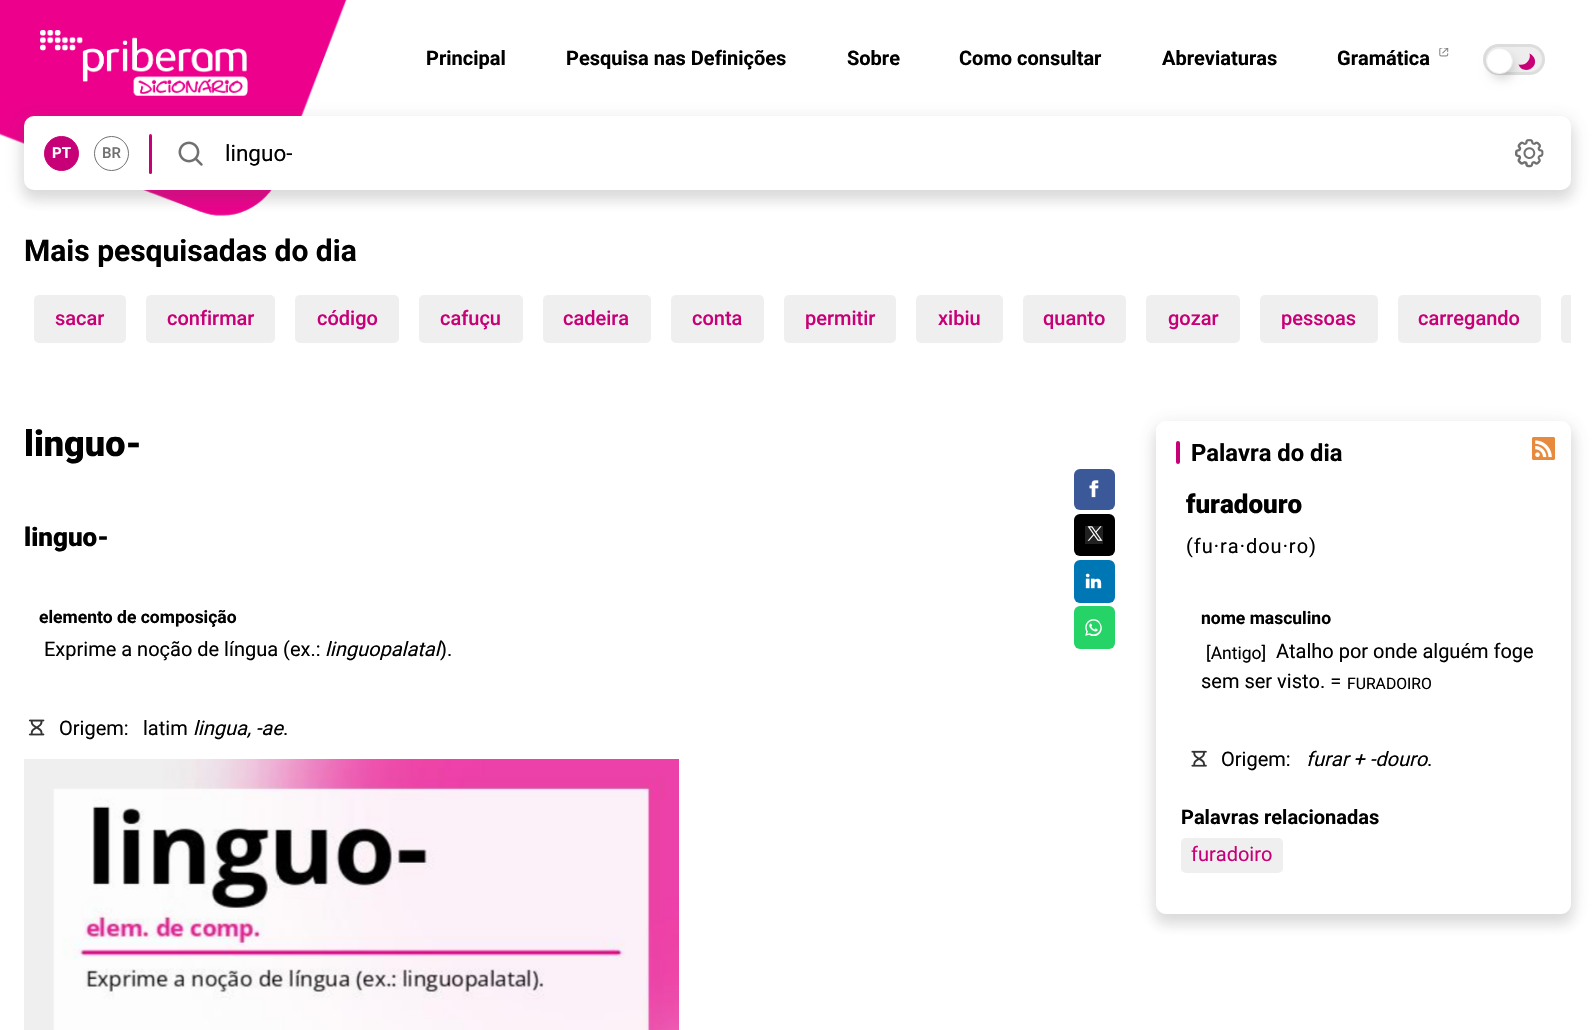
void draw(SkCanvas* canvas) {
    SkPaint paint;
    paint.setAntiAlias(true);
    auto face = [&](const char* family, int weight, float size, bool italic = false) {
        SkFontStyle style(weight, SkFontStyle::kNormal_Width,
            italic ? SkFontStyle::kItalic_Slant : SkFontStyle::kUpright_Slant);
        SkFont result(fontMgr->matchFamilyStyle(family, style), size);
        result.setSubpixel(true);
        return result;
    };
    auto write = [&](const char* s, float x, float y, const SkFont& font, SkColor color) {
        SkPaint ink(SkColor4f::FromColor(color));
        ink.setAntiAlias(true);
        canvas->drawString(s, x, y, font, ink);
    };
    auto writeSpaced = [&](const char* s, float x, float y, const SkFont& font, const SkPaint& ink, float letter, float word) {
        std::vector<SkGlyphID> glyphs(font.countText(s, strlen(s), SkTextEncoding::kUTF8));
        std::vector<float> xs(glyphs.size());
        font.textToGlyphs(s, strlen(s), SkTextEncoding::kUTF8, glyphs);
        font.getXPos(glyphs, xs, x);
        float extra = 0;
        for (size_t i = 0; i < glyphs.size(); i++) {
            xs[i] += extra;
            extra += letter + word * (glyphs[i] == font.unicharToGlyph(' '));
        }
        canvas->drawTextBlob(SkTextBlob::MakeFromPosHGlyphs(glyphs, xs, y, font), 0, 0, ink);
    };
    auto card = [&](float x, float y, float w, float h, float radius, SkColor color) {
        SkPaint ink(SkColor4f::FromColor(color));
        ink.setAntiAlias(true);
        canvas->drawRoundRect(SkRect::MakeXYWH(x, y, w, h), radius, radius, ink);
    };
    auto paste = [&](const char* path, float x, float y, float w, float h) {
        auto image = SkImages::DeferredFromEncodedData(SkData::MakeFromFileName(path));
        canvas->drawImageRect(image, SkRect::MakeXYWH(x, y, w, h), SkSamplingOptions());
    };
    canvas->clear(SK_ColorWHITE);
    paste("pic6.png", 143, 190, 129, 26);
    paste("pic1.png", 0, 0, 347, 216);
    paste("pic2.png", 40, 30, 208, 66);
    auto kFont1 = face("Roboto", 700, 20);
    write("Principal", 426, 65, kFont1, SK_ColorBLACK);
    write("Pesquisa nas Definições", 566, 65, kFont1, SK_ColorBLACK);
    write("Sobre", 847, 65, kFont1, SK_ColorBLACK);
    write("Como consultar", 959, 65, kFont1, SK_ColorBLACK);
    write("Abreviaturas", 1162, 65, kFont1, SK_ColorBLACK);
    write("Gramática", 1337, 65, kFont1, SK_ColorBLACK);
    paste("pic3.png", 1439, 48, 10, 9);
    paint.setColor(SkColorSetRGB(238, 238, 238));
    canvas->drawRoundRect(SkRect::MakeXYWH(1484.5f, 45.5f, 59, 28), 14, 14, paint);
    paint.setStyle(SkPaint::kStroke_Style);
    paint.setStrokeWidth(3);
    paint.setColor(SkColorSetRGB(221, 221, 221));
    canvas->drawRoundRect(SkRect::MakeXYWH(1484.5f, 45.5f, 59, 28), 14, 14, paint);
    paint.setStrokeWidth(3.8f);
    paint.setColor(SkColorSetRGB(199, 0, 119));
    paint.setPathEffect(SkDashPathEffect::Make({{3.75f, 3.75f}}, 0));
    canvas->drawPath(SkPathBuilder().moveTo(1502, 52).cubicTo(1513, 52, 1513, 69, 1502, 69).cubicTo(1491, 69, 1491, 52, 1502, 52).close().detach(), paint);
    paint.setPathEffect(nullptr);
    paint.setStyle(SkPaint::kFill_Style);
    canvas->drawPath(SkPathBuilder().moveTo(1518.5f, 64.5f).cubicTo(1523, 75.5f, 1539.5f, 68, 1534, 57.5f).cubicTo(1533, 56, 1531.5f, 54.5f, 1529.5f, 53.5f).cubicTo(1531.5f, 60, 1525, 66.5f, 1518.5f, 64.5f).close().detach(), paint);
    paint.setColor(SkColorSetARGB(51, 0, 0, 0));
    paint.setMaskFilter(SkMaskFilter::MakeBlur(kNormal_SkBlurStyle, 6));
    canvas->drawRoundRect(SkRect::MakeXYWH(1491, 56, 22, 22), 11, 11, paint);
    paint.setMaskFilter(nullptr);
    paint.setColor(SK_ColorWHITE);
    canvas->drawRoundRect(SkRect::MakeXYWH(1486.5f, 48.5f, 26, 25), 12.5f, 12.5f, paint);
    paint.setStyle(SkPaint::kStroke_Style);
    paint.setStrokeWidth(1);
    paint.setColor(SkColorSetRGB(238, 238, 238));
    canvas->drawRoundRect(SkRect::MakeXYWH(1486.5f, 48.5f, 26, 25), 12.5f, 12.5f, paint);
    paint.setStyle(SkPaint::kFill_Style);
    paint.setColor(SkColorSetARGB(31, 82, 71, 78));
    paint.setMaskFilter(SkMaskFilter::MakeBlur(kNormal_SkBlurStyle, 9));
    canvas->drawRoundRect(SkRect::MakeXYWH(21, 118, 1553, 78), 13, 13, paint);
    paint.setMaskFilter(nullptr);
    paint.setMaskFilter(SkMaskFilter::MakeBlur(kNormal_SkBlurStyle, 6));
    canvas->drawRoundRect(SkRect::MakeXYWH(23, 125, 1550, 76), 11, 11, paint);
    paint.setMaskFilter(nullptr);
    card(24, 116, 1547, 74, 10, SK_ColorWHITE);
    paint.setColor(SkColorSetRGB(199, 0, 119));
    canvas->drawCircle(61.5f, 153.5f, 17, paint);
    paint.setStyle(SkPaint::kStroke_Style);
    canvas->drawCircle(61.5f, 153.5f, 17, paint);
    auto kFont2 = face("Roboto", 700, 15);
    write("PT", 52, 158, kFont2, SK_ColorWHITE);
    paint.setColor(SkColorSetRGB(112, 112, 112));
    canvas->drawCircle(111.5f, 153.5f, 17, paint);
    auto kFont3 = face("Roboto", 500, 15);
    write("BR", 102, 158, kFont3, SkColorSetRGB(112, 112, 112));
    card(149, 134, 3, 40, 1.5f, SkColorSetRGB(199, 0, 119));
    paste("pic4.png", 178, 141, 25, 25);
    auto kFont4 = face("Roboto", 400, 22.5f);
    write("linguo-", 225, 161, kFont4, SK_ColorBLACK);
    paste("pic5.png", 1515, 139, 29, 29);
    auto kFont5 = face("Roboto", 700, 30);
    write("Mais pesquisadas do dia", 24, 261, kFont5, SK_ColorBLACK);
    card(34, 295, 92, 48, 5, SkColorSetRGB(239, 239, 239));
    auto kFont6 = face("Roboto", 500, 20);
    write("sacar", 55, 325, kFont6, SkColorSetRGB(199, 0, 119));
    card(146, 295, 129, 48, 5, SkColorSetRGB(239, 239, 239));
    write("confirmar", 167, 325, kFont6, SkColorSetRGB(199, 0, 119));
    card(295, 295, 104, 48, 5, SkColorSetRGB(239, 239, 239));
    write("código", 317, 325, kFont6, SkColorSetRGB(199, 0, 119));
    card(419, 295, 104, 48, 5, SkColorSetRGB(239, 239, 239));
    write("cafuçu", 440, 325, kFont6, SkColorSetRGB(199, 0, 119));
    card(543, 295, 108, 48, 5, SkColorSetRGB(239, 239, 239));
    write("cadeira", 563, 325, kFont6, SkColorSetRGB(199, 0, 119));
    card(671, 295, 93, 48, 5, SkColorSetRGB(239, 239, 239));
    write("conta", 692, 325, kFont6, SkColorSetRGB(199, 0, 119));
    card(784, 295, 112, 48, 5, SkColorSetRGB(239, 239, 239));
    write("permitir", 805, 325, kFont6, SkColorSetRGB(199, 0, 119));
    card(916, 295, 87, 48, 5, SkColorSetRGB(239, 239, 239));
    write("xibiu", 938, 325, kFont6, SkColorSetRGB(199, 0, 119));
    card(1023, 295, 103, 48, 5, SkColorSetRGB(239, 239, 239));
    write("quanto", 1043, 325, kFont6, SkColorSetRGB(199, 0, 119));
    card(1146, 295, 94, 48, 5, SkColorSetRGB(239, 239, 239));
    write("gozar", 1168, 325, kFont6, SkColorSetRGB(199, 0, 119));
    card(1260, 295, 118, 48, 5, SkColorSetRGB(239, 239, 239));
    write("pessoas", 1281, 325, kFont6, SkColorSetRGB(199, 0, 119));
    card(1398, 295, 143, 48, 5, SkColorSetRGB(239, 239, 239));
    write("carregando", 1418, 325, kFont6, SkColorSetRGB(199, 0, 119));
    paint.setStyle(SkPaint::kFill_Style);
    paint.setColor(SkColorSetRGB(239, 239, 239));
    canvas->drawPath(SkPathBuilder().moveTo(1566, 295).lineTo(1571, 295).lineTo(1571, 343).lineTo(1566, 343).cubicTo(1563, 343, 1561, 341, 1561, 338).lineTo(1561, 300).cubicTo(1561, 297, 1563, 295, 1566, 295).close().detach(), paint);
    auto kFont7 = face("Roboto", 900, 36);
    write("linguo-", 24, 456, kFont7, SK_ColorBLACK);
    card(1074, 469, 41, 41, 6, SkColorSetRGB(59, 89, 152));
    paste("pic7.png", 1089, 480, 10, 18);
    card(1074, 514, 41, 42, 6, SK_ColorBLACK);
    paste("pic8.png", 1085, 526, 18, 18);
    card(1074, 560, 41, 43, 6, SkColorSetRGB(0, 119, 181));
    paste("pic9.png", 1085, 573, 17, 16);
    card(1074, 606, 41, 43, 6, SkColorSetRGB(37, 211, 102));
    paste("pic10.png", 1085, 619, 17, 17);
    auto kFont8 = face("Roboto", 900, 26);
    write("linguo-", 24, 546, kFont8, SK_ColorBLACK);
    auto kFont9 = face("Roboto", 700, 17.5f);
    write("elemento de composição", 39, 623, kFont9, SK_ColorBLACK);
    auto kFont10 = face("Roboto", 400, 20);
    write("Exprime a noção de língua (ex.:", 44, 656, kFont10, SK_ColorBLACK);
    auto kFont11 = face("Roboto", 400, 20, true);
    write("linguopalatal", 325, 656, kFont11, SK_ColorBLACK);
    write(").", 440, 656, kFont10, SK_ColorBLACK);
    paste("pic11.png", 28, 719, 17, 17);
    write("Origem:", 59, 735, kFont10, SK_ColorBLACK);
    write("latim", 143, 735, kFont10, SK_ColorBLACK);
    write("lingua, -ae", 193, 735, kFont11, SK_ColorBLACK);
    write(".", 283, 735, kFont10, SK_ColorBLACK);
    paste("pic12.png", 24, 759, 655, 271);
    canvas->save();
    canvas->clipPath(SkPathBuilder(SkPathFillType::kEvenOdd).moveTo(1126, 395).lineTo(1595, 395).lineTo(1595, 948).lineTo(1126, 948).close().moveTo(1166, 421).lineTo(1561, 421).cubicTo(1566.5f, 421, 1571, 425.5f, 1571, 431).lineTo(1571, 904).cubicTo(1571, 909.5f, 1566.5f, 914, 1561, 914).lineTo(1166, 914).cubicTo(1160.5f, 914, 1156, 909.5f, 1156, 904).lineTo(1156, 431).cubicTo(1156, 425.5f, 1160.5f, 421, 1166, 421).close().detach(), true);
    paint.setColor(SkColorSetARGB(31, 82, 71, 78));
    paint.setMaskFilter(SkMaskFilter::MakeBlur(kNormal_SkBlurStyle, 9));
    canvas->drawRoundRect(SkRect::MakeXYWH(1154, 423, 420, 497), 13, 13, paint);
    paint.setMaskFilter(nullptr);
    canvas->restore();
    canvas->save();
    canvas->clipPath(SkPathBuilder(SkPathFillType::kEvenOdd).moveTo(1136, 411).lineTo(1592, 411).lineTo(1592, 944).lineTo(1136, 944).close().moveTo(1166, 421).lineTo(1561, 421).cubicTo(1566.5f, 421, 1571, 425.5f, 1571, 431).lineTo(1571, 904).cubicTo(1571, 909.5f, 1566.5f, 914, 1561, 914).lineTo(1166, 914).cubicTo(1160.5f, 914, 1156, 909.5f, 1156, 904).lineTo(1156, 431).cubicTo(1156, 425.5f, 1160.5f, 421, 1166, 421).close().detach(), true);
    paint.setMaskFilter(SkMaskFilter::MakeBlur(kNormal_SkBlurStyle, 6));
    canvas->drawRoundRect(SkRect::MakeXYWH(1155, 430, 418, 495), 11, 11, paint);
    paint.setMaskFilter(nullptr);
    canvas->restore();
    card(1176, 441, 4, 23, 2, SkColorSetRGB(199, 0, 119));
    auto kFont12 = face("Roboto", 700, 23.75f);
    write("Palavra do dia", 1191, 461, kFont12, SK_ColorBLACK);
    paste("pic13.png", 1532, 437, 23, 23);
    write("furadouro", 1186, 513, kFont8, SK_ColorBLACK);
    paint.setColor(SK_ColorBLACK);
    writeSpaced("(fu·ra·dou·ro)", 1186, 553, kFont10, paint, 1, 0);
    write("nome masculino", 1201, 624, kFont9, SK_ColorBLACK);
    auto kFont13 = face("Roboto", 400, 17.5f);
    write("[Antigo]", 1206, 659, kFont13, SK_ColorBLACK);
    write("Atalho por onde alguém foge", 1276, 658, kFont10, SK_ColorBLACK);
    write("sem ser visto. =", 1201, 688, kFont10, SK_ColorBLACK);
    auto kFont14 = face("Roboto", 400, 15.75f);
    write("FURADOIRO", 1347, 689, kFont14, SK_ColorBLACK);
    paste("pic14.png", 1191, 750, 16, 17);
    write("Origem:", 1221, 766, kFont10, SK_ColorBLACK);
    write("furar + -douro", 1306, 766, kFont11, SK_ColorBLACK);
    write(".", 1427, 766, kFont10, SK_ColorBLACK);
    write("Palavras relacionadas", 1181, 824, kFont1, SK_ColorBLACK);
    card(1181, 838, 102, 35, 5, SkColorSetRGB(239, 239, 239));
    write("furadoiro", 1191, 861, kFont10, SkColorSetRGB(199, 0, 119));
}
